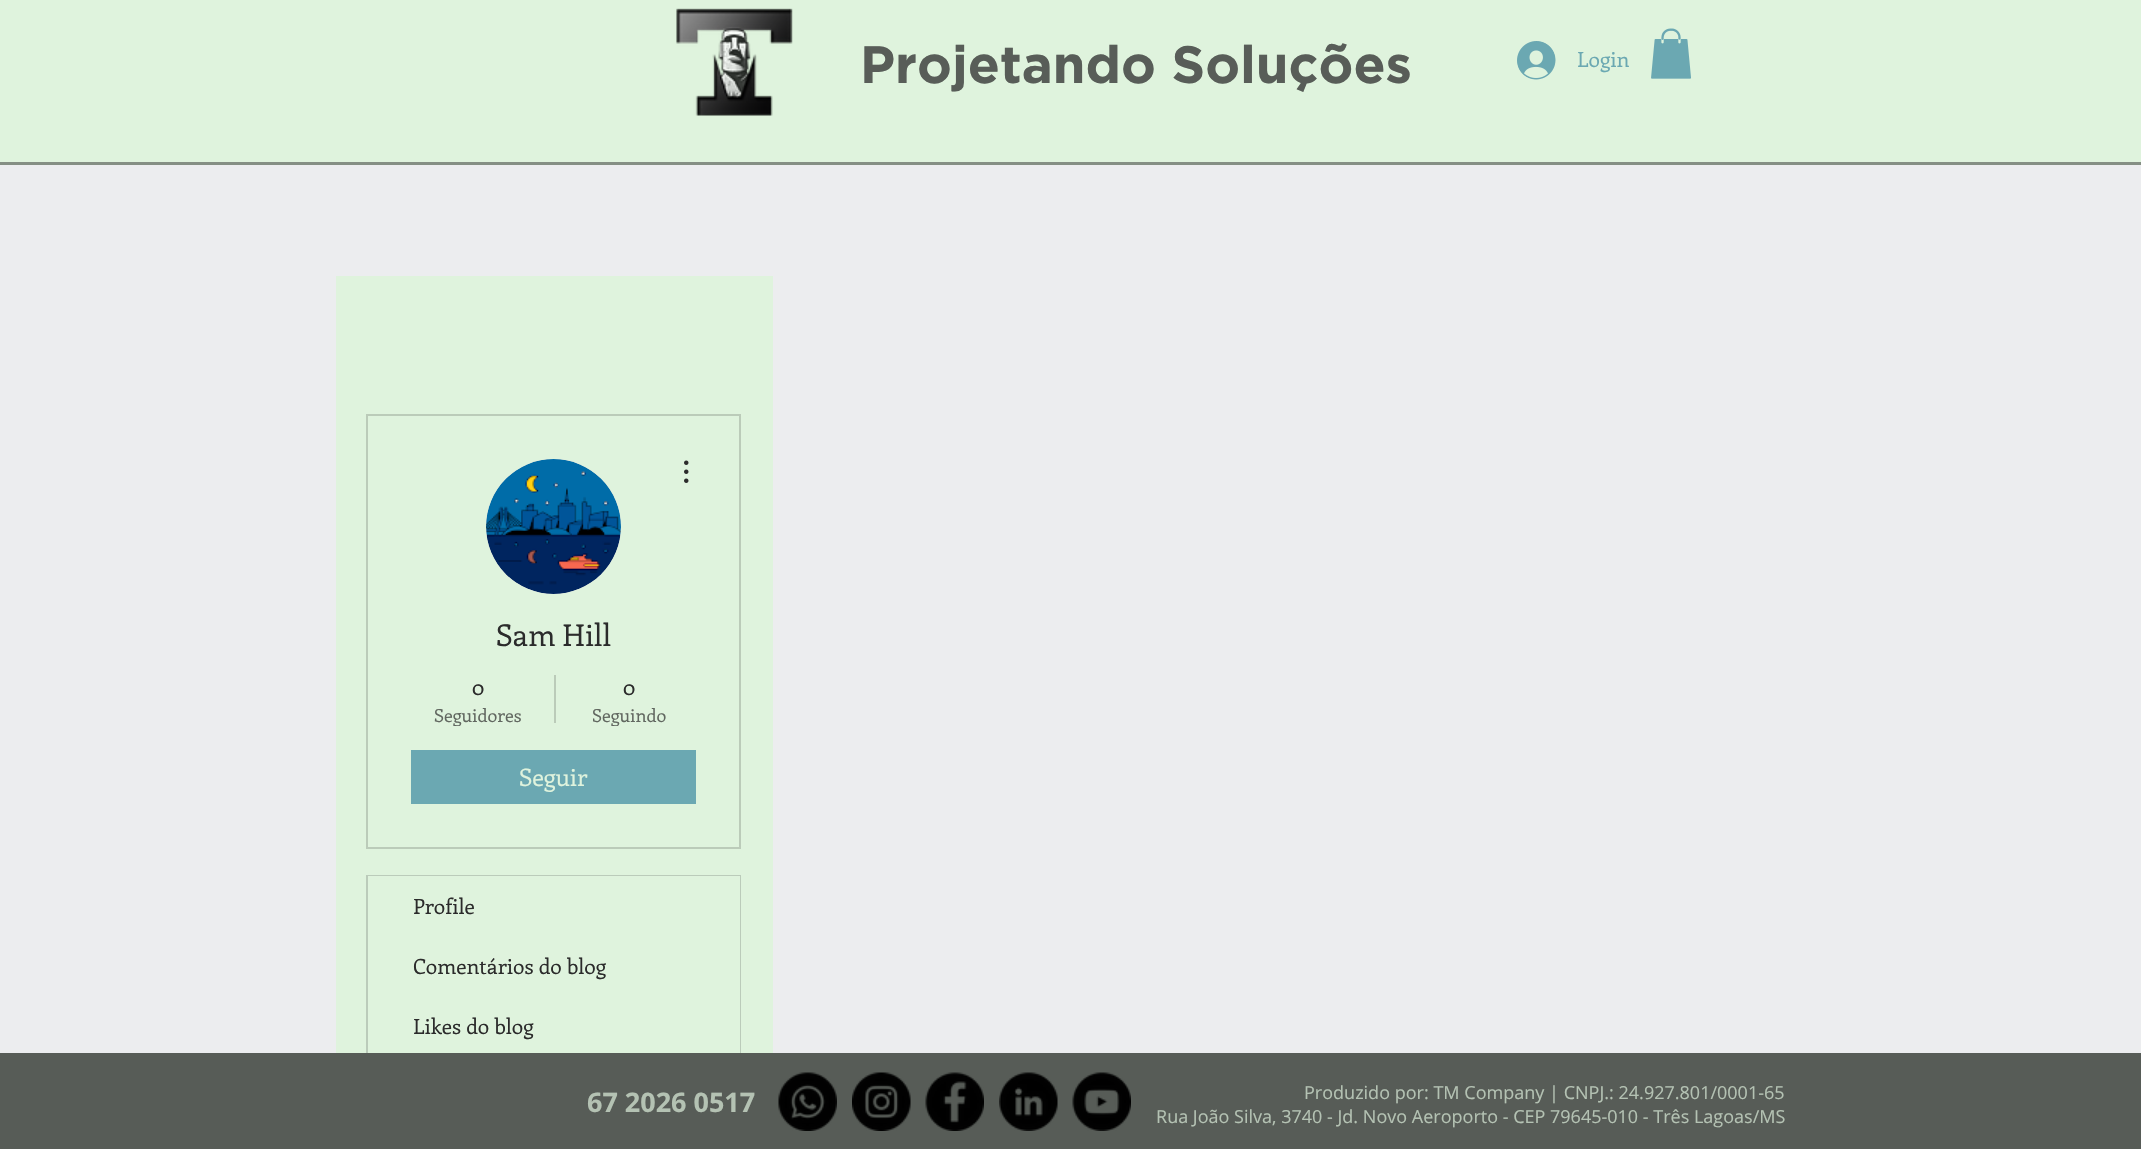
void draw(SkCanvas* canvas) {
    SkPaint paint;
    paint.setAntiAlias(true);
    auto face = [&](const char* family, int weight, float size, bool italic = false) {
        SkFontStyle style(weight, SkFontStyle::kNormal_Width,
            italic ? SkFontStyle::kItalic_Slant : SkFontStyle::kUpright_Slant);
        SkFont result(fontMgr->matchFamilyStyle(family, style), size);
        result.setSubpixel(true);
        return result;
    };
    auto write = [&](const char* s, float x, float y, const SkFont& font, SkColor color) {
        SkPaint ink(SkColor4f::FromColor(color));
        ink.setAntiAlias(true);
        canvas->drawString(s, x, y, font, ink);
    };
    auto block = [&](float x, float y, float w, float h, SkColor color) {
        SkPaint ink(SkColor4f::FromColor(color));
        ink.setAntiAlias(true);
        canvas->drawRect(SkRect::MakeXYWH(x, y, w, h), ink);
    };
    auto paste = [&](const char* path, float x, float y, float w, float h) {
        auto image = SkImages::DeferredFromEncodedData(SkData::MakeFromFileName(path));
        canvas->drawImageRect(image, SkRect::MakeXYWH(x, y, w, h), SkSamplingOptions());
    };
    canvas->clear(SkColorSetRGB(236, 237, 239));
    block(0, 0, 2141, 162, SkColorSetRGB(223, 243, 221));
    block(0, 162, 2141, 3, SkColorSetRGB(133, 143, 132));
    paste("pic1.png", 676, 8, 117, 108);
    auto kFont1 = face("Gotham", 700, 52.5f);
    write("Projetando Soluções", 860, 83, kFont1, SkColorSetRGB(88, 93, 88));
    paste("pic2.png", 1517, 41, 39, 39);
    auto kFont2 = face("Enriqueta", 400, 21);
    write("Login", 1577, 67, kFont2, SkColorSetRGB(107, 168, 178));
    paste("pic3.png", 1651, 28, 40, 51);
    block(336, 276, 437, 777, SkColorSetRGB(223, 243, 221));
    paint.setStyle(SkPaint::kStroke_Style);
    paint.setStrokeWidth(2);
    paint.setColor(SkColorSetRGB(187, 203, 185));
    canvas->drawRect(SkRect::MakeXYWH(367, 415, 373, 433), paint);
    paint.setStyle(SkPaint::kFill_Style);
    paint.setColor(SkColorSetRGB(216, 216, 216));
    canvas->drawCircle(553.5f, 526.5f, 67.5f, paint);
    paste("pic4.png", 486, 459, 135, 135);
    paste("pic5.png", 684, 460, 5, 23);
    auto kFont3 = face("Enriqueta", 400, 30);
    write("Sam Hill", 496, 646, kFont3, SkColorSetRGB(43, 43, 43));
    write("0", 472, 695, kFont2, SkColorSetRGB(43, 43, 43));
    canvas->save();
    canvas->clipRect(SkRect::MakeXYWH(434, 702, 88, 24));
    auto kFont4 = face("Enriqueta", 400, 18);
    write("Seguidores", 434, 722, kFont4, SkColorSetRGB(97, 103, 96));
    canvas->restore();
    block(554, 675, 2, 48, SkColorSetRGB(187, 203, 185));
    write("0", 623, 695, kFont2, SkColorSetRGB(43, 43, 43));
    canvas->save();
    canvas->clipRect(SkRect::MakeXYWH(593, 702, 73, 24));
    write("Seguindo", 592, 722, kFont4, SkColorSetRGB(97, 103, 96));
    canvas->restore();
    block(411, 750, 285, 54, SkColorSetRGB(107, 168, 178));
    auto kFont5 = face("Enriqueta", 400, 24);
    write("Seguir", 519, 786, kFont5, SkColorSetRGB(223, 243, 221));
    paint.setStyle(SkPaint::kStroke_Style);
    paint.setColor(SkColorSetARGB(51, 43, 43, 43));
    canvas->drawRect(SkRect::MakeXYWH(367, 876, 373, 241), paint);
    block(368, 876, 372, 60, SkColorSetRGB(223, 243, 221));
    write("Profile", 413, 914, kFont2, SkColorSetRGB(43, 43, 43));
    block(739, 936, 1, 117, SkColorSetRGB(223, 243, 221));
    write("Comentários do blog", 413, 974, kFont2, SkColorSetRGB(43, 43, 43));
    write("Likes do blog", 413, 1034, kFont2, SkColorSetRGB(43, 43, 43));
    block(0, 1053, 2141, 96, SkColorSetRGB(87, 92, 87));
    auto kFont6 = face("Open Sans", 700, 27);
    write("67 2026 0517", 587, 1112, kFont6, SkColorSetRGB(180, 194, 179));
    paste("pic6.png", 778, 1072, 59, 59);
    paste("pic7.png", 852, 1072, 59, 59);
    paste("pic8.png", 925, 1072, 59, 59);
    paste("pic9.png", 999, 1072, 59, 59);
    paste("pic10.png", 1072, 1072, 59, 59);
    auto kFont7 = face("Open Sans", 400, 18);
    write("Produzido por: TM Company | CNPJ.: 24.927.801/0001-65", 1304, 1099, kFont7, SkColorSetRGB(180, 194, 179));
    write("Rua João Silva, 3740 - Jd. Novo Aeroporto - CEP 79645-010 - Três Lagoas/MS", 1156, 1123, kFont7, SkColorSetRGB(180, 194, 179));
}
